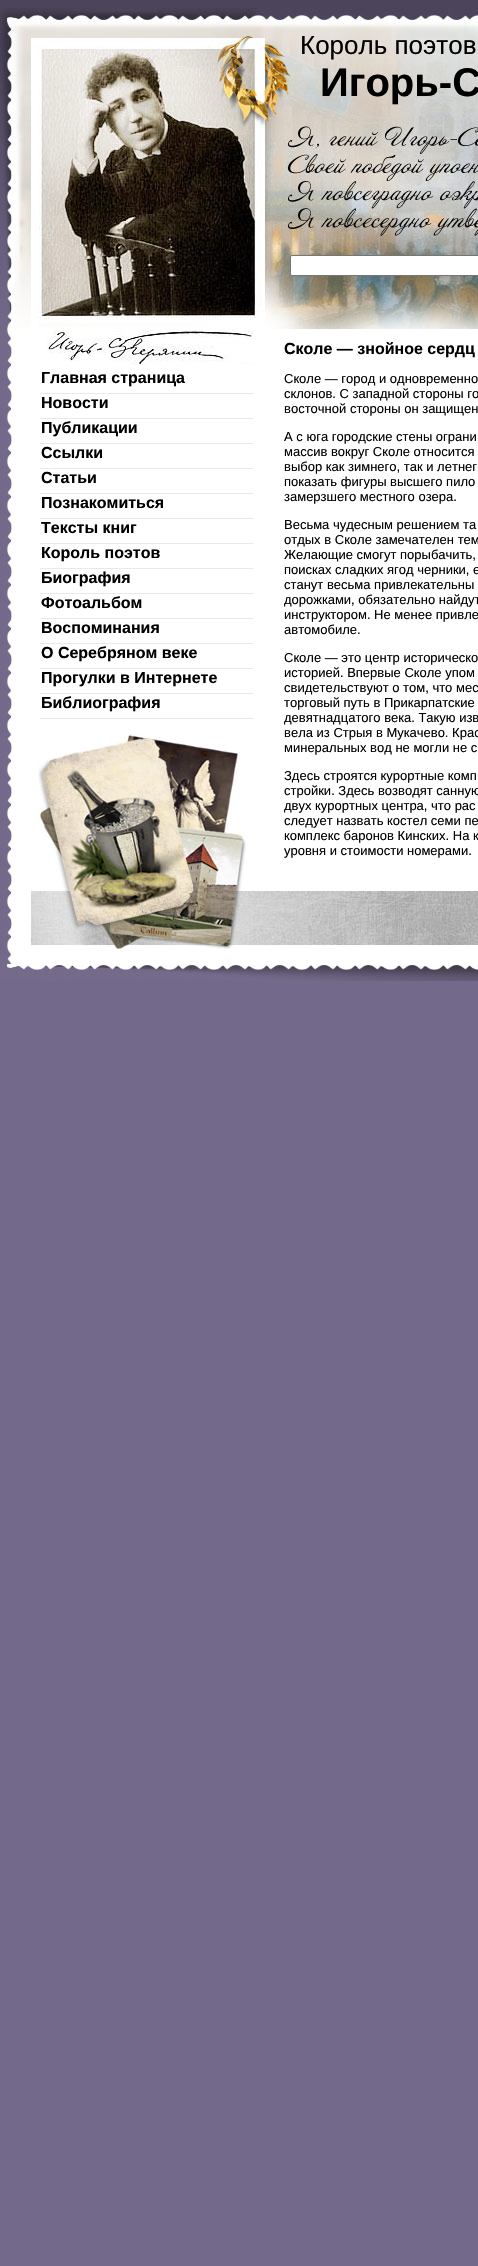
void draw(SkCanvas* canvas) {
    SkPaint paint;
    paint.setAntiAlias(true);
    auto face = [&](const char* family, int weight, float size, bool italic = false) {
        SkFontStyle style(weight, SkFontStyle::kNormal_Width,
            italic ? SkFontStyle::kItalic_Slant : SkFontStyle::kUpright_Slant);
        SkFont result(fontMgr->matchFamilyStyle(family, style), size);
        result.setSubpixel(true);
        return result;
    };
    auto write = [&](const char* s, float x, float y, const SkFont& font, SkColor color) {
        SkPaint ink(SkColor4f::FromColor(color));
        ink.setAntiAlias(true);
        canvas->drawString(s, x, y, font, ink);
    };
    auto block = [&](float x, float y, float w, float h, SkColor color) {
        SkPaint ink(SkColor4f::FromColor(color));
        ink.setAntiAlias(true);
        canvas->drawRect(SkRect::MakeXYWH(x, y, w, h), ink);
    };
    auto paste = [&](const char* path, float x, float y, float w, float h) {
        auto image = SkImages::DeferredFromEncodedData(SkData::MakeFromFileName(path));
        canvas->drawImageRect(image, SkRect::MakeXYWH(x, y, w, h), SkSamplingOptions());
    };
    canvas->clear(SkColorSetRGB(115, 105, 138));
    paste("pic1.png", 0, 0, 478, 8);
    paste("pic2.png", 0, 8, 478, 321);
    auto kFont1 = face("Liberation Sans", 400, 26);
    write("Король поэтов", 300, 54, kFont1, SK_ColorBLACK);
    auto kFont2 = face("Liberation Sans", 700, 40);
    write("Игорь-С", 320, 96, kFont2, SK_ColorBLACK);
    paint.setColor(SK_ColorWHITE);
    canvas->drawRoundRect(SkRect::MakeXYWH(290.5f, 255.5f, 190, 20), 1.5f, 1.5f, paint);
    paint.setStyle(SkPaint::kStroke_Style);
    paint.setStrokeWidth(1);
    paint.setColor(SkColorSetRGB(118, 118, 118));
    canvas->drawRoundRect(SkRect::MakeXYWH(290.5f, 255.5f, 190, 20), 1.5f, 1.5f, paint);
    block(13, 329, 465, 635, SK_ColorWHITE);
    paste("pic3.png", 0, 329, 13, 635);
    paste("pic4.png", 47, 329, 206, 36);
    block(40, 393, 213, 1, SkColorSetRGB(233, 233, 233));
    auto kFont3 = face("Liberation Sans", 700, 16);
    write("Главная страница", 41, 383, kFont3, SK_ColorBLACK);
    block(40, 418, 213, 1, SkColorSetRGB(233, 233, 233));
    write("Новости", 41, 408, kFont3, SK_ColorBLACK);
    block(40, 443, 213, 1, SkColorSetRGB(233, 233, 233));
    write("Публикации", 41, 433, kFont3, SK_ColorBLACK);
    block(40, 468, 213, 1, SkColorSetRGB(233, 233, 233));
    write("Ссылки", 41, 458, kFont3, SK_ColorBLACK);
    block(40, 493, 213, 1, SkColorSetRGB(233, 233, 233));
    write("Статьи", 41, 483, kFont3, SK_ColorBLACK);
    block(40, 518, 213, 1, SkColorSetRGB(233, 233, 233));
    write("Познакомиться", 41, 508, kFont3, SK_ColorBLACK);
    block(40, 543, 213, 1, SkColorSetRGB(233, 233, 233));
    write("Тексты книг", 41, 533, kFont3, SK_ColorBLACK);
    block(40, 568, 213, 1, SkColorSetRGB(233, 233, 233));
    write("Король поэтов", 41, 558, kFont3, SK_ColorBLACK);
    block(40, 593, 213, 1, SkColorSetRGB(233, 233, 233));
    write("Биография", 41, 583, kFont3, SK_ColorBLACK);
    block(40, 618, 213, 1, SkColorSetRGB(233, 233, 233));
    write("Фотоальбом", 41, 608, kFont3, SK_ColorBLACK);
    block(40, 643, 213, 1, SkColorSetRGB(233, 233, 233));
    write("Воспоминания", 41, 633, kFont3, SK_ColorBLACK);
    block(40, 668, 213, 1, SkColorSetRGB(233, 233, 233));
    write("О Серебряном веке", 41, 658, kFont3, SK_ColorBLACK);
    block(40, 693, 213, 1, SkColorSetRGB(233, 233, 233));
    write("Прогулки в Интернете", 41, 683, kFont3, SK_ColorBLACK);
    block(40, 718, 213, 1, SkColorSetRGB(233, 233, 233));
    write("Библиография", 41, 708, kFont3, SK_ColorBLACK);
    write("Сколе — знойное сердц", 284, 354, kFont3, SK_ColorBLACK);
    auto kFont4 = face("Liberation Sans", 400, 13);
    write("Сколе — город и одновременно", 284, 383, kFont4, SK_ColorBLACK);
    write("склонов. С западной стороны го", 284, 398, kFont4, SK_ColorBLACK);
    write("восточной стороны он защищен", 284, 413, kFont4, SK_ColorBLACK);
    write("А с юга городские стены ограни", 284, 441, kFont4, SK_ColorBLACK);
    write("массив вокруг Сколе относится", 284, 456, kFont4, SK_ColorBLACK);
    write("выбор как зимнего, так и летнег", 284, 471, kFont4, SK_ColorBLACK);
    write("показать фигуры высшего пило", 284, 486, kFont4, SK_ColorBLACK);
    write("замерзшего местного озера.", 284, 501, kFont4, SK_ColorBLACK);
    write("Весьма чудесным решением та", 284, 529, kFont4, SK_ColorBLACK);
    write("отдых в Сколе замечателен тем", 284, 544, kFont4, SK_ColorBLACK);
    write("Желающие смогут порыбачить,", 284, 559, kFont4, SK_ColorBLACK);
    write("поисках сладких ягод черники, е", 284, 574, kFont4, SK_ColorBLACK);
    write("станут весьма привлекательны", 284, 589, kFont4, SK_ColorBLACK);
    write("дорожками, обязательно найдут", 284, 604, kFont4, SK_ColorBLACK);
    write("инструктором. Не менее привле", 284, 619, kFont4, SK_ColorBLACK);
    write("автомобиле.", 284, 634, kFont4, SK_ColorBLACK);
    write("Сколе — это центр историческо", 284, 662, kFont4, SK_ColorBLACK);
    write("историей. Впервые Сколе упом", 284, 677, kFont4, SK_ColorBLACK);
    write("свидетельствуют о том, что мес", 284, 692, kFont4, SK_ColorBLACK);
    write("торговый путь в Прикарпатские", 284, 707, kFont4, SK_ColorBLACK);
    write("девятнадцатого века. Такую изв", 284, 722, kFont4, SK_ColorBLACK);
    write("вела из Стрыя в Мукачево. Крас", 284, 737, kFont4, SK_ColorBLACK);
    write("минеральных вод не могли не с", 284, 752, kFont4, SK_ColorBLACK);
    write("Здесь строятся курортные комп", 284, 780, kFont4, SK_ColorBLACK);
    write("стройки. Здесь возводят санную", 284, 795, kFont4, SK_ColorBLACK);
    write("двух курортных центра, что рас", 284, 810, kFont4, SK_ColorBLACK);
    write("следует назвать костел семи пе", 284, 825, kFont4, SK_ColorBLACK);
    write("комплекс баронов Кинских. На к", 284, 840, kFont4, SK_ColorBLACK);
    write("уровня и стоимости номерами.", 284, 855, kFont4, SK_ColorBLACK);
    paste("pic5.png", 12, 891, 466, 58);
    paste("pic6.png", 36, 734, 210, 157);
    paste("pic7.png", 0, 964, 478, 17);
}
